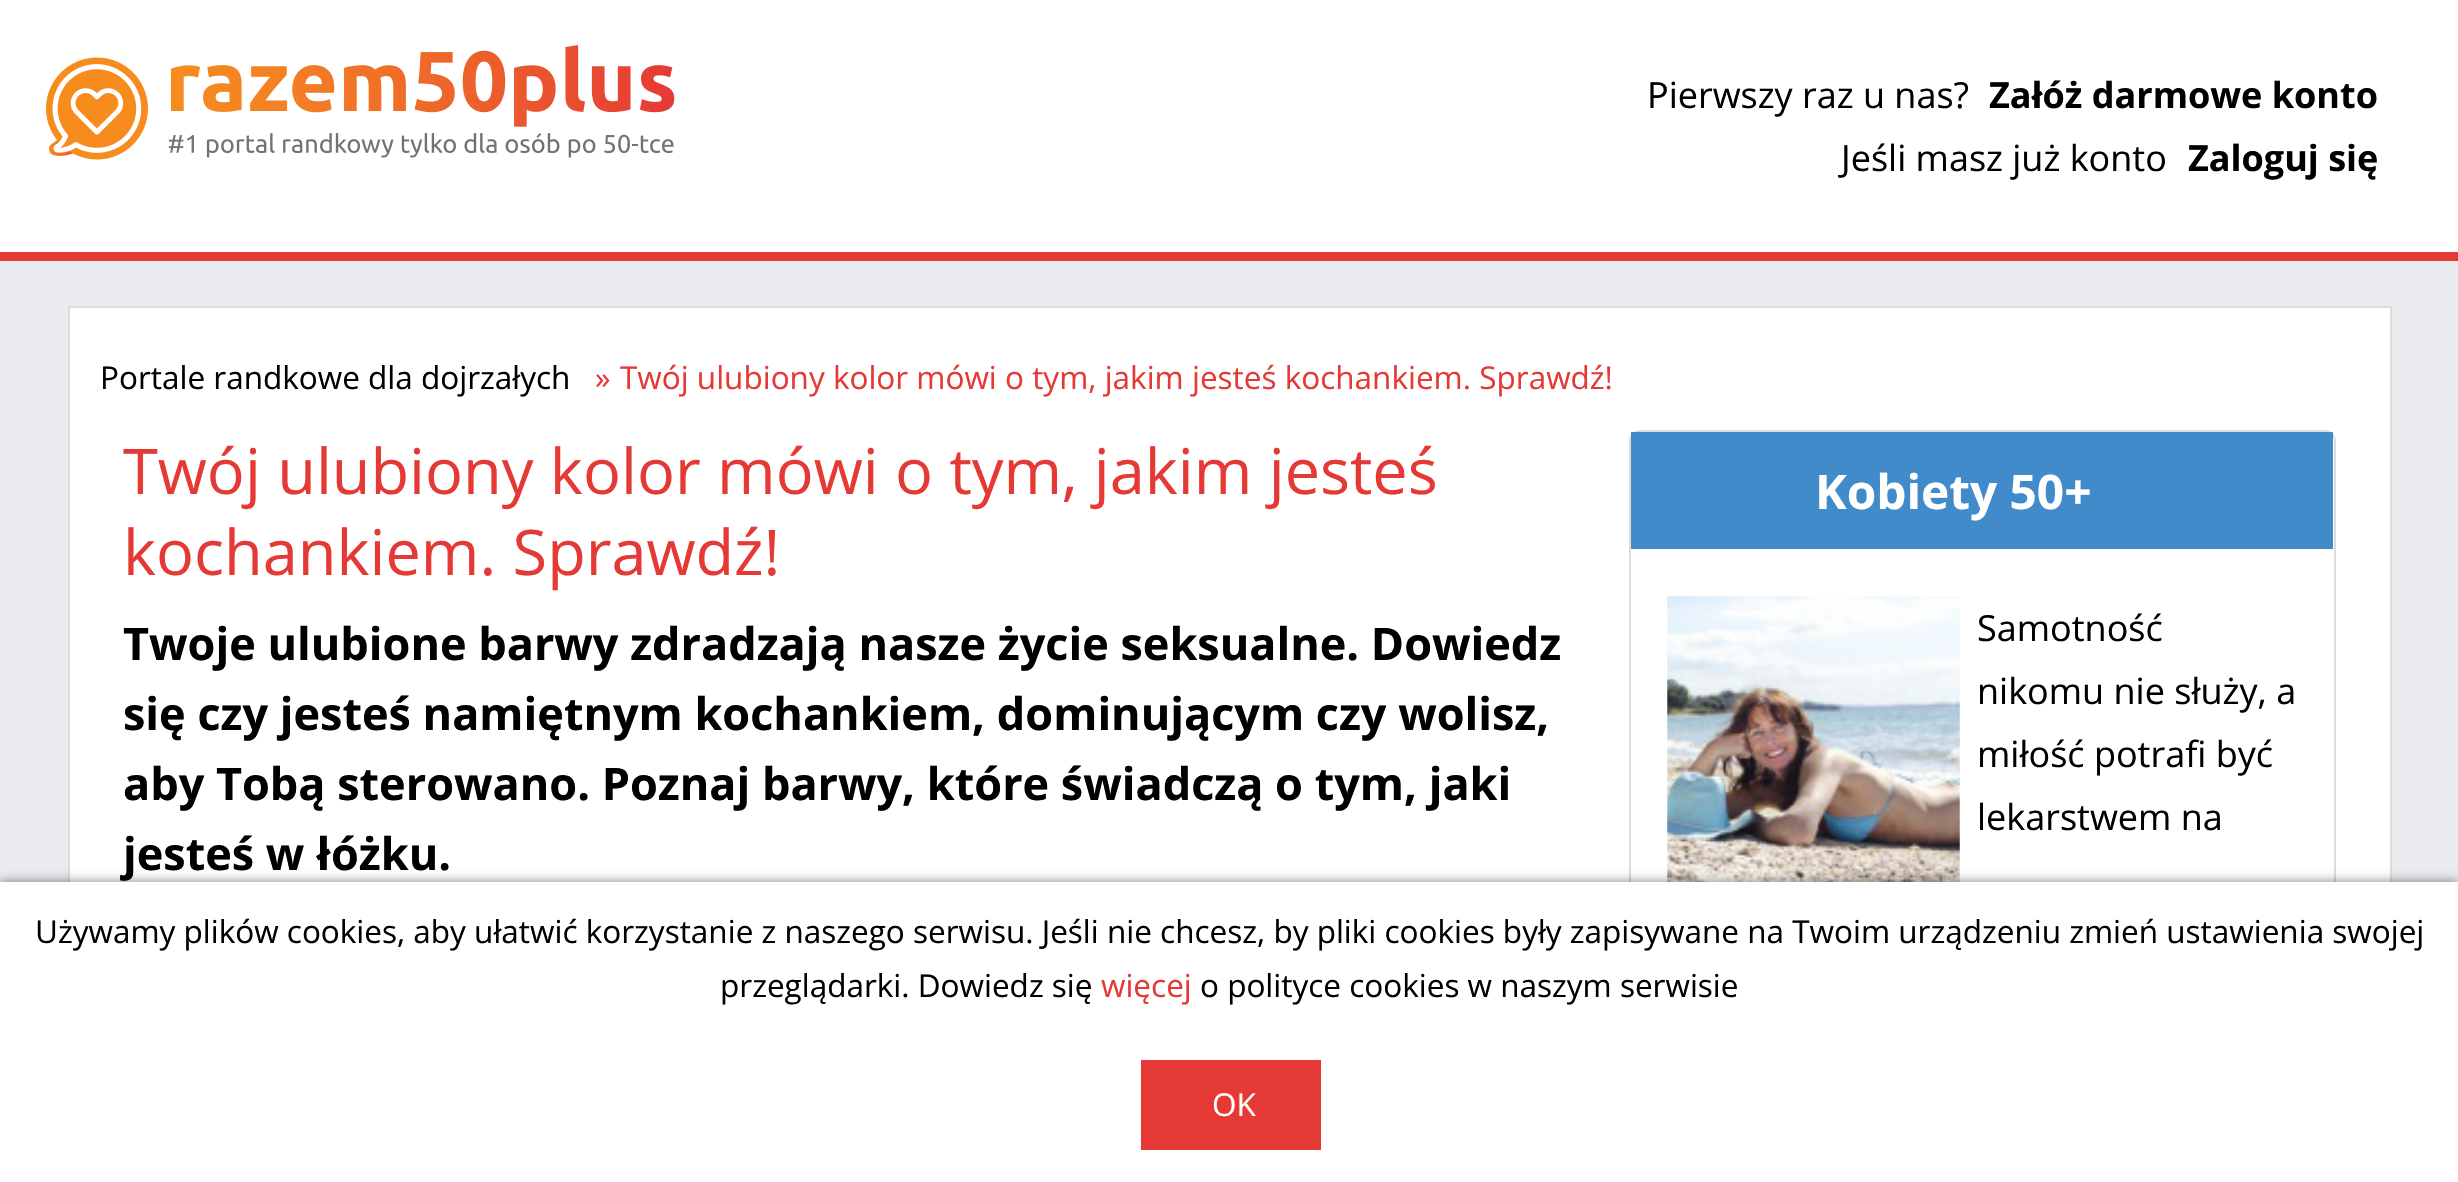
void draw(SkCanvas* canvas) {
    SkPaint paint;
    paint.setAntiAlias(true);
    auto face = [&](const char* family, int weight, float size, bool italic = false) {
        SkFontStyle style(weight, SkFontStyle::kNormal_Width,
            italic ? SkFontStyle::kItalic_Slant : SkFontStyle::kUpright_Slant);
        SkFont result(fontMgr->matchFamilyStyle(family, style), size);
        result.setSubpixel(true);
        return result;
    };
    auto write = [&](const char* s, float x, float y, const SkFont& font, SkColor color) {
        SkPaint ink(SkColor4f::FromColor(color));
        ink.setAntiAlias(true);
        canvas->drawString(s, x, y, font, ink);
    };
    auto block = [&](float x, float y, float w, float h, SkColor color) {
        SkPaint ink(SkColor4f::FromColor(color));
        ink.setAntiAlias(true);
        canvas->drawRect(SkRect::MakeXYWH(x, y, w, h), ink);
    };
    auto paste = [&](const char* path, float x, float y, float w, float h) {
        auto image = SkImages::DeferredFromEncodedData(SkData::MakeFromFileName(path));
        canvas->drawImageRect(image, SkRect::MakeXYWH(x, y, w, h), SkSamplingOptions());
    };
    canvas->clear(SkColorSetRGB(233, 235, 238));
    block(0, 0, 2458, 252, SK_ColorWHITE);
    block(0, 252, 2458, 9, SkColorSetRGB(229, 57, 53));
    paste("pic1.png", 46, 45, 629, 115);
    auto kFont1 = face("Open Sans", 400, 36);
    write("Pierwszy raz u nas?", 1647, 108, kFont1, SK_ColorBLACK);
    auto kFont2 = face("Open Sans", 700, 36);
    write("Załóż darmowe konto", 1989, 108, kFont2, SK_ColorBLACK);
    write("Jeśli masz już konto", 1841, 171, kFont1, SK_ColorBLACK);
    write("Zaloguj się", 2188, 171, kFont2, SK_ColorBLACK);
    block(70, 308, 2320, 574, SK_ColorWHITE);
    paint.setStyle(SkPaint::kStroke_Style);
    paint.setStrokeWidth(2);
    paint.setColor(SkColorSetRGB(221, 221, 221));
    canvas->drawRect(SkRect::MakeXYWH(69, 307, 2322, 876), paint);
    auto kFont3 = face("Open Sans", 400, 31.5f);
    write("Portale randkowe dla dojrzałych", 100, 389, kFont3, SK_ColorBLACK);
    write("»", 595, 389, kFont3, SkColorSetRGB(229, 57, 53));
    write("Twój ulubiony kolor mówi o tym, jakim jesteś kochankiem. Sprawdź!", 620, 389, kFont3, SkColorSetRGB(229, 57, 53));
    auto kFont4 = face("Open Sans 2", 400, 63);
    write("Twój ulubiony kolor mówi o tym, jakim jesteś", 123, 494, kFont4, SkColorSetRGB(229, 57, 53));
    write("kochankiem. Sprawdź!", 123, 575, kFont4, SkColorSetRGB(229, 57, 53));
    auto kFont5 = face("Open Sans 2", 700, 45);
    write("Twoje ulubione barwy zdradzają nasze życie seksualne. Dowiedz", 123, 660, kFont5, SK_ColorBLACK);
    write("się czy jesteś namiętnym kochankiem, dominującym czy wolisz,", 123, 730, kFont5, SK_ColorBLACK);
    write("aby Tobą sterowano. Poznaj barwy, które świadczą o tym, jaki", 123, 800, kFont5, SK_ColorBLACK);
    write("jesteś w łóżku.", 123, 870, kFont5, SK_ColorBLACK);
    canvas->drawRoundRect(SkRect::MakeXYWH(1630, 431, 705, 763), 10, 10, paint);
    block(1631, 432, 702, 117, SkColorSetRGB(66, 139, 202));
    auto kFont6 = face("Open Sans", 700, 47.75f);
    write("Kobiety 50+", 1815, 509, kFont6, SK_ColorWHITE);
    paste("pic2.png", 1667, 596, 293, 286);
    write("Samotność", 1977, 641, kFont1, SK_ColorBLACK);
    write("nikomu nie służy, a", 1977, 704, kFont1, SK_ColorBLACK);
    write("miłość potrafi być", 1977, 767, kFont1, SK_ColorBLACK);
    write("lekarstwem na", 1977, 830, kFont1, SK_ColorBLACK);
    paint.setStyle(SkPaint::kFill_Style);
    paint.setColor(SkColorSetARGB(128, 0, 0, 0));
    paint.setMaskFilter(SkMaskFilter::MakeBlur(kNormal_SkBlurStyle, 5.5f));
    canvas->drawRect(SkRect::MakeXYWH(0, 882, 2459, 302), paint);
    paint.setMaskFilter(nullptr);
    block(0, 882, 2458, 300, SK_ColorWHITE);
    write("Używamy plików cookies, aby ułatwić korzystanie z naszego serwisu. Jeśli nie chcesz, by pliki cookies były zapisywane na Twoim urządzeniu zmień ustawienia swojej", 35, 943, kFont3, SK_ColorBLACK);
    write("przeglądarki. Dowiedz się", 720, 997, kFont3, SK_ColorBLACK);
    write("więcej", 1101, 997, kFont3, SkColorSetRGB(229, 57, 53));
    write("o polityce cookies w naszym serwisie", 1200, 997, kFont3, SK_ColorBLACK);
    block(1141, 1060, 180, 90, SkColorSetRGB(229, 57, 53));
    write("OK", 1212, 1116, kFont3, SK_ColorWHITE);
}
